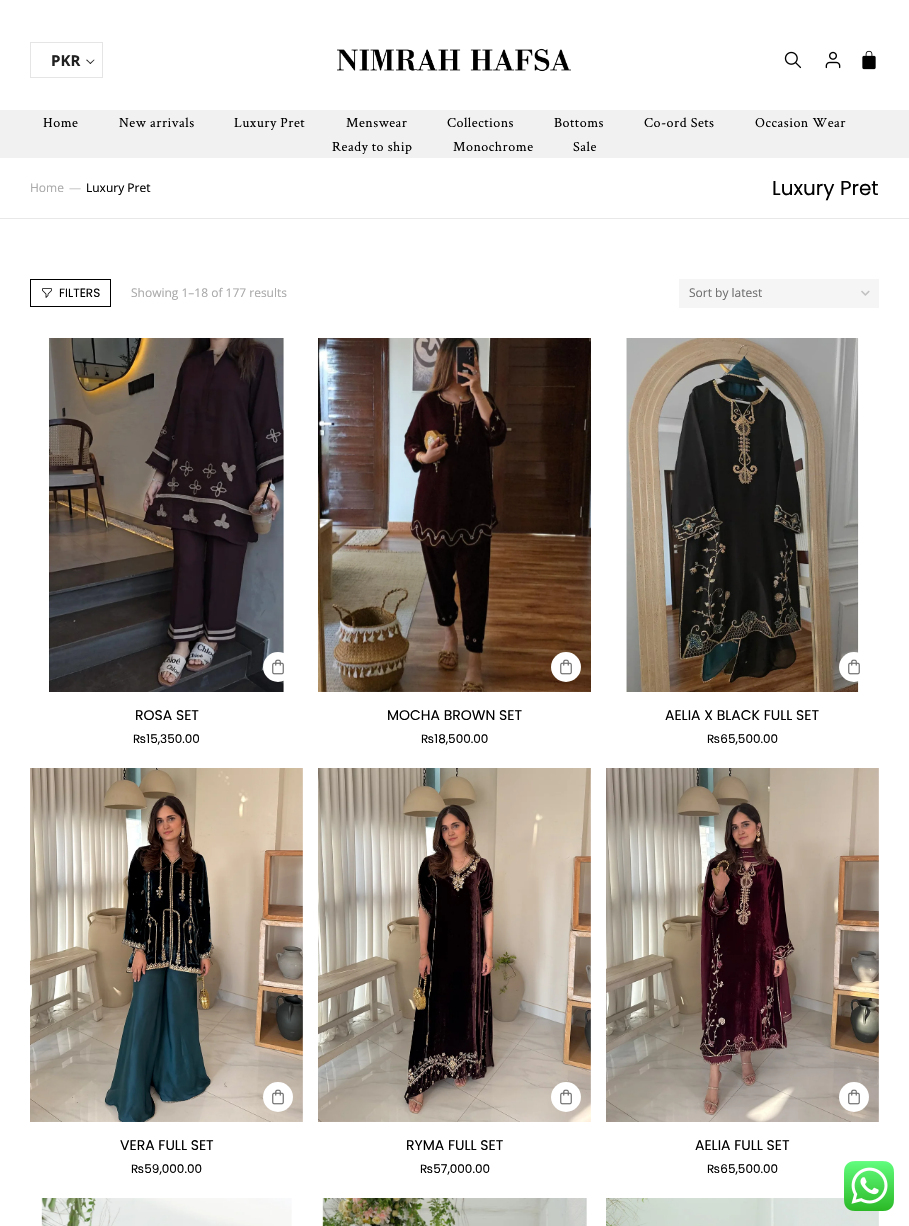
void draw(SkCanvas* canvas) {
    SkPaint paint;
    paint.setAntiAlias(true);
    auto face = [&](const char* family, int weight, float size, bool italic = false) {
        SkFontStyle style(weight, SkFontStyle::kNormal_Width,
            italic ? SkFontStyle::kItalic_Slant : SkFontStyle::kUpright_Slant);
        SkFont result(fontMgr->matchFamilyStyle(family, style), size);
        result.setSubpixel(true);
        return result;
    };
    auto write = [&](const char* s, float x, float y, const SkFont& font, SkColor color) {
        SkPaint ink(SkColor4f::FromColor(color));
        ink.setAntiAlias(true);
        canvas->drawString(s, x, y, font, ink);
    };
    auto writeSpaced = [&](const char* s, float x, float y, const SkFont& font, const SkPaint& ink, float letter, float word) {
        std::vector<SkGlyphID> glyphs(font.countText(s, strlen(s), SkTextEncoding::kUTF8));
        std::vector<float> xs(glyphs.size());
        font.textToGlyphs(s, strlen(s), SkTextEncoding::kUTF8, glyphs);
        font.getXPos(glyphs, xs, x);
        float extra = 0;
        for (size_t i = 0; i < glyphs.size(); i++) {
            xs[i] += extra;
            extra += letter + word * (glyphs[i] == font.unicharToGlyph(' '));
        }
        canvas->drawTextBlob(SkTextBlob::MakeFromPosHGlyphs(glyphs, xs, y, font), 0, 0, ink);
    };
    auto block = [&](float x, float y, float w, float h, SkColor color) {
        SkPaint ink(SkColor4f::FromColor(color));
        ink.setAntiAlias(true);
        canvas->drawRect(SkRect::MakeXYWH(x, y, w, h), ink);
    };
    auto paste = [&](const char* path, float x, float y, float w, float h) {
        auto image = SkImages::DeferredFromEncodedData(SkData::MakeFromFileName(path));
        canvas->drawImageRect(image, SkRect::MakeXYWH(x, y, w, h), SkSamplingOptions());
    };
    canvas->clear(SK_ColorWHITE);
    paint.setStyle(SkPaint::kStroke_Style);
    paint.setStrokeWidth(1);
    paint.setColor(SkColorSetRGB(229, 229, 229));
    canvas->drawRect(SkRect::MakeXYWH(30.5f, 42.5f, 72, 35), paint);
    auto kFont1 = face("Open Sans", 700, 15);
    write("PKR", 51, 66, kFont1, SkColorSetRGB(33, 33, 33));
    paint.setStyle(SkPaint::kFill_Style);
    paint.setColor(SkColorSetRGB(33, 33, 33));
    canvas->drawPath(SkPathBuilder().moveTo(94, 59.5f).lineTo(94.5f, 60).lineTo(90.5f, 64).lineTo(89.5f, 63.5f).close().detach(), paint);
    canvas->drawPath(SkPathBuilder().moveTo(87, 59.5f).lineTo(91, 63.5f).lineTo(90.5f, 64).lineTo(86, 60).close().detach(), paint);
    paste("pic1.png", 337, 48, 234, 24);
    paste("pic2.png", 784, 51, 18, 18);
    paste("pic3.png", 825, 51, 16, 18);
    paste("pic4.png", 862, 50, 14, 20);
    block(0, 110, 909, 48, SkColorSetRGB(241, 241, 241));
    auto kFont2 = face("Crimson Text", 400, 14);
    paint.setColor(SK_ColorBLACK);
    writeSpaced("Home", 43, 127, kFont2, paint, 0.5f, 0);
    writeSpaced("New arrivals", 119, 127, kFont2, paint, 0.5f, 0);
    writeSpaced("Luxury Pret", 234, 127, kFont2, paint, 0.5f, 0);
    writeSpaced("Menswear", 346, 127, kFont2, paint, 0.5f, 0);
    writeSpaced("Collections", 447, 127, kFont2, paint, 0.5f, 0);
    writeSpaced("Bottoms", 554, 127, kFont2, paint, 0.5f, 0);
    writeSpaced("Co-ord Sets", 644, 127, kFont2, paint, 0.5f, 0);
    writeSpaced("Occasion Wear", 755, 127, kFont2, paint, 0.5f, 0);
    writeSpaced("Ready to ship", 332, 151, kFont2, paint, 0.5f, 0);
    writeSpaced("Monochrome", 453, 151, kFont2, paint, 0.5f, 0);
    writeSpaced("Sale", 573, 151, kFont2, paint, 0.5f, 0);
    block(0, 218, 909, 1, SkColorSetRGB(232, 232, 232));
    auto kFont3 = face("Open Sans", 400, 12);
    write("Home", 30, 192, kFont3, SkColorSetRGB(170, 170, 170));
    write("—", 69, 192, kFont3, SkColorSetRGB(201, 201, 201));
    write("Luxury Pret", 86, 192, kFont3, SK_ColorBLACK);
    auto kFont4 = face("Poppins", 400, 20);
    write("Luxury Pret", 772, 195, kFont4, SK_ColorBLACK);
    paint.setStyle(SkPaint::kStroke_Style);
    canvas->drawRect(SkRect::MakeXYWH(30.5f, 279.5f, 80, 27), paint);
    paste("pic5.png", 42, 288, 10, 10);
    auto kFont5 = face("Poppins", 400, 12);
    write("FILTERS", 59, 297, kFont5, SK_ColorBLACK);
    write("Showing 1–18 of 177 results", 131, 297, kFont3, SkColorSetRGB(170, 170, 170));
    block(679, 279, 200, 29, SkColorSetRGB(245, 245, 245));
    write("Sort by latest", 689, 297, kFont3, SkColorSetRGB(112, 112, 112));
    paste("pic6.png", 861, 290, 9, 6);
    paste("pic7.png", 48, 338, 236, 354);
    paint.setStyle(SkPaint::kFill_Style);
    paint.setColor(SK_ColorWHITE);
    canvas->drawCircle(278, 667, 15, paint);
    paste("pic8.png", 272, 659, 12, 16);
    auto kFont6 = face("Poppins", 400, 14);
    write("ROSA SET", 135, 720, kFont6, SK_ColorBLACK);
    write("₨15,350.00", 133, 743, kFont5, SK_ColorBLACK);
    paste("pic9.png", 318, 338, 273, 354);
    canvas->drawCircle(566, 667, 15, paint);
    paste("pic8.png", 560, 659, 12, 16);
    write("MOCHA BROWN SET", 387, 720, kFont6, SK_ColorBLACK);
    write("₨18,500.00", 421, 743, kFont5, SK_ColorBLACK);
    paste("pic10.png", 626, 338, 233, 354);
    canvas->drawCircle(854, 667, 15, paint);
    paste("pic8.png", 848, 659, 12, 16);
    write("AELIA X BLACK FULL SET", 665, 720, kFont6, SK_ColorBLACK);
    write("₨65,500.00", 707, 743, kFont5, SK_ColorBLACK);
    paste("pic11.png", 30, 768, 273, 354);
    canvas->drawCircle(278, 1097, 15, paint);
    paste("pic8.png", 272, 1089, 12, 16);
    write("VERA FULL SET", 120, 1150, kFont6, SK_ColorBLACK);
    write("₨59,000.00", 131, 1173, kFont5, SK_ColorBLACK);
    paste("pic12.png", 318, 768, 273, 354);
    canvas->drawCircle(566, 1097, 15, paint);
    paste("pic8.png", 560, 1089, 12, 16);
    write("RYMA FULL SET", 406, 1150, kFont6, SK_ColorBLACK);
    write("₨57,000.00", 420, 1173, kFont5, SK_ColorBLACK);
    paste("pic13.png", 606, 768, 273, 354);
    canvas->drawCircle(854, 1097, 15, paint);
    paste("pic8.png", 848, 1089, 12, 16);
    write("AELIA FULL SET", 695, 1150, kFont6, SK_ColorBLACK);
    write("₨65,500.00", 707, 1173, kFont5, SK_ColorBLACK);
    paste("pic14.png", 41, 1198, 251, 28);
    paste("pic15.png", 322, 1198, 265, 28);
    paste("pic16.png", 606, 1198, 273, 28);
    paste("pic17.png", 844, 1161, 50, 50);
}
